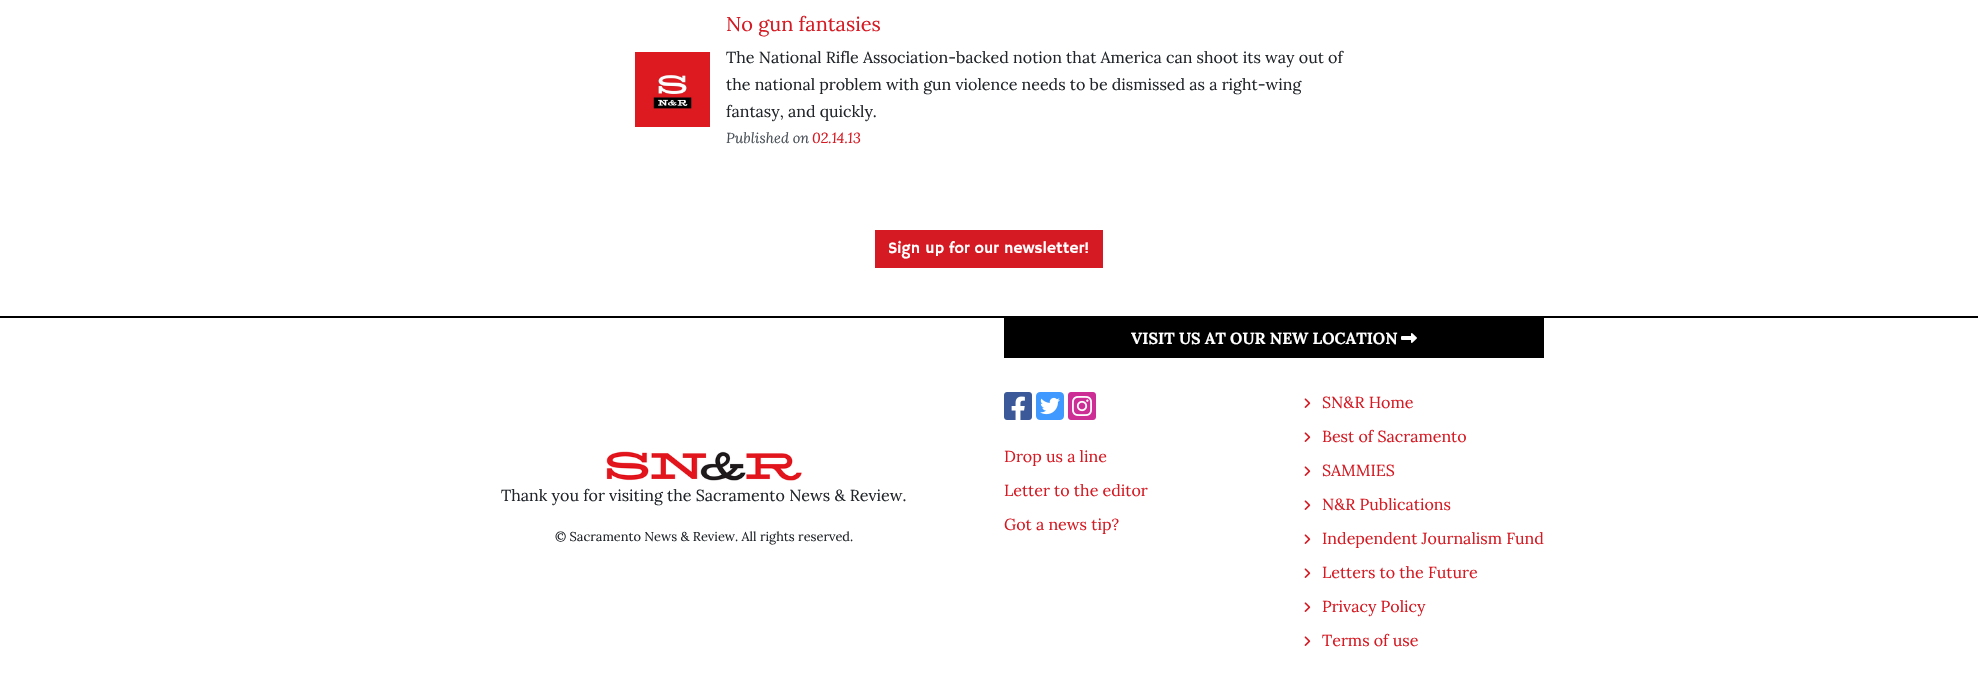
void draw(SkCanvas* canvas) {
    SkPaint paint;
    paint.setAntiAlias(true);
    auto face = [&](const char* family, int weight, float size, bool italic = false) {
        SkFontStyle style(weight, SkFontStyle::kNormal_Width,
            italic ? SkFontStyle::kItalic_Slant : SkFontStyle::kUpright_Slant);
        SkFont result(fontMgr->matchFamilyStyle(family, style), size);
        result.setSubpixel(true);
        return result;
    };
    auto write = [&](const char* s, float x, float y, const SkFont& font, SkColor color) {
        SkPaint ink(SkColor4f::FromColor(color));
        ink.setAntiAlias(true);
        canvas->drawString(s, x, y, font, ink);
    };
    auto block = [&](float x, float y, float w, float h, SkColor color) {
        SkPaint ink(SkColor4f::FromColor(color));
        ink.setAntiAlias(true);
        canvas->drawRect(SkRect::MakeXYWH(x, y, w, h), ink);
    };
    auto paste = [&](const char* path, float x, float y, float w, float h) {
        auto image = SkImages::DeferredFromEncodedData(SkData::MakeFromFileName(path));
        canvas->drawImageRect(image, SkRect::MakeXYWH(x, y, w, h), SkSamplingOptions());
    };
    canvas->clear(SK_ColorWHITE);
    paste("pic1.png", 635, 52, 75, 75);
    auto kFont1 = face("Lora", 400, 20);
    write("No gun fantasies", 726, 31, kFont1, SkColorSetRGB(213, 26, 35));
    auto kFont2 = face("Lora", 400, 16);
    write("The National Rifle Association-backed notion that America can shoot its way out of", 726, 63, kFont2, SkColorSetRGB(33, 37, 41));
    write("the national problem with gun violence needs to be dismissed as a right-wing", 726, 90, kFont2, SkColorSetRGB(33, 37, 41));
    write("fantasy, and quickly.", 726, 117, kFont2, SkColorSetRGB(33, 37, 41));
    auto kFont3 = face("Lora", 400, 14.5f, true);
    write("Published on", 726, 143, kFont3, SkColorSetRGB(73, 80, 87));
    write("02.14.13", 812, 143, kFont3, SkColorSetRGB(213, 26, 35));
    block(875, 230, 228, 38, SkColorSetRGB(213, 26, 35));
    auto kFont4 = face("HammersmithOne", 400, 16);
    write("Sign up for our newsletter!", 888, 253, kFont4, SK_ColorWHITE);
    block(0, 316, 1978, 2, SK_ColorBLACK);
    paste("pic2.png", 606, 451, 196, 30);
    write("Thank you for visiting the Sacramento News & Review.", 501, 501, kFont2, SkColorSetRGB(33, 37, 41));
    auto kFont5 = face("Lora", 400, 12.8f);
    write("© Sacramento News & Review. All rights reserved.", 555, 541, kFont5, SkColorSetRGB(33, 37, 41));
    block(1004, 318, 540, 40, SK_ColorBLACK);
    auto kFont6 = face("Lora", 700, 16);
    write("VISIT US AT OUR NEW LOCATION", 1131, 344, kFont6, SK_ColorWHITE);
    paste("pic3.png", 1401, 333, 16, 10);
    paste("pic4.png", 1004, 392, 28, 28);
    paste("pic5.png", 1036, 392, 28, 28);
    paste("pic6.png", 1068, 392, 28, 28);
    write("Drop us a line", 1004, 462, kFont2, SkColorSetRGB(213, 26, 35));
    write("Letter to the editor", 1004, 496, kFont2, SkColorSetRGB(213, 26, 35));
    write("Got a news tip?", 1004, 530, kFont2, SkColorSetRGB(213, 26, 35));
    paste("pic7.png", 1304, 398, 7, 10);
    write("SN&R Home", 1322, 408, kFont2, SkColorSetRGB(213, 26, 35));
    paste("pic7.png", 1304, 432, 7, 10);
    write("Best of Sacramento", 1322, 442, kFont2, SkColorSetRGB(213, 26, 35));
    paste("pic7.png", 1304, 466, 7, 10);
    write("SAMMIES", 1322, 476, kFont2, SkColorSetRGB(213, 26, 35));
    paste("pic7.png", 1304, 500, 7, 10);
    write("N&R Publications", 1322, 510, kFont2, SkColorSetRGB(213, 26, 35));
    paste("pic7.png", 1304, 534, 7, 10);
    write("Independent Journalism Fund", 1322, 544, kFont2, SkColorSetRGB(213, 26, 35));
    paste("pic7.png", 1304, 568, 7, 10);
    write("Letters to the Future", 1322, 578, kFont2, SkColorSetRGB(213, 26, 35));
    paste("pic7.png", 1304, 602, 7, 10);
    write("Privacy Policy", 1322, 612, kFont2, SkColorSetRGB(213, 26, 35));
    paste("pic7.png", 1304, 636, 7, 10);
    write("Terms of use", 1322, 646, kFont2, SkColorSetRGB(213, 26, 35));
}
